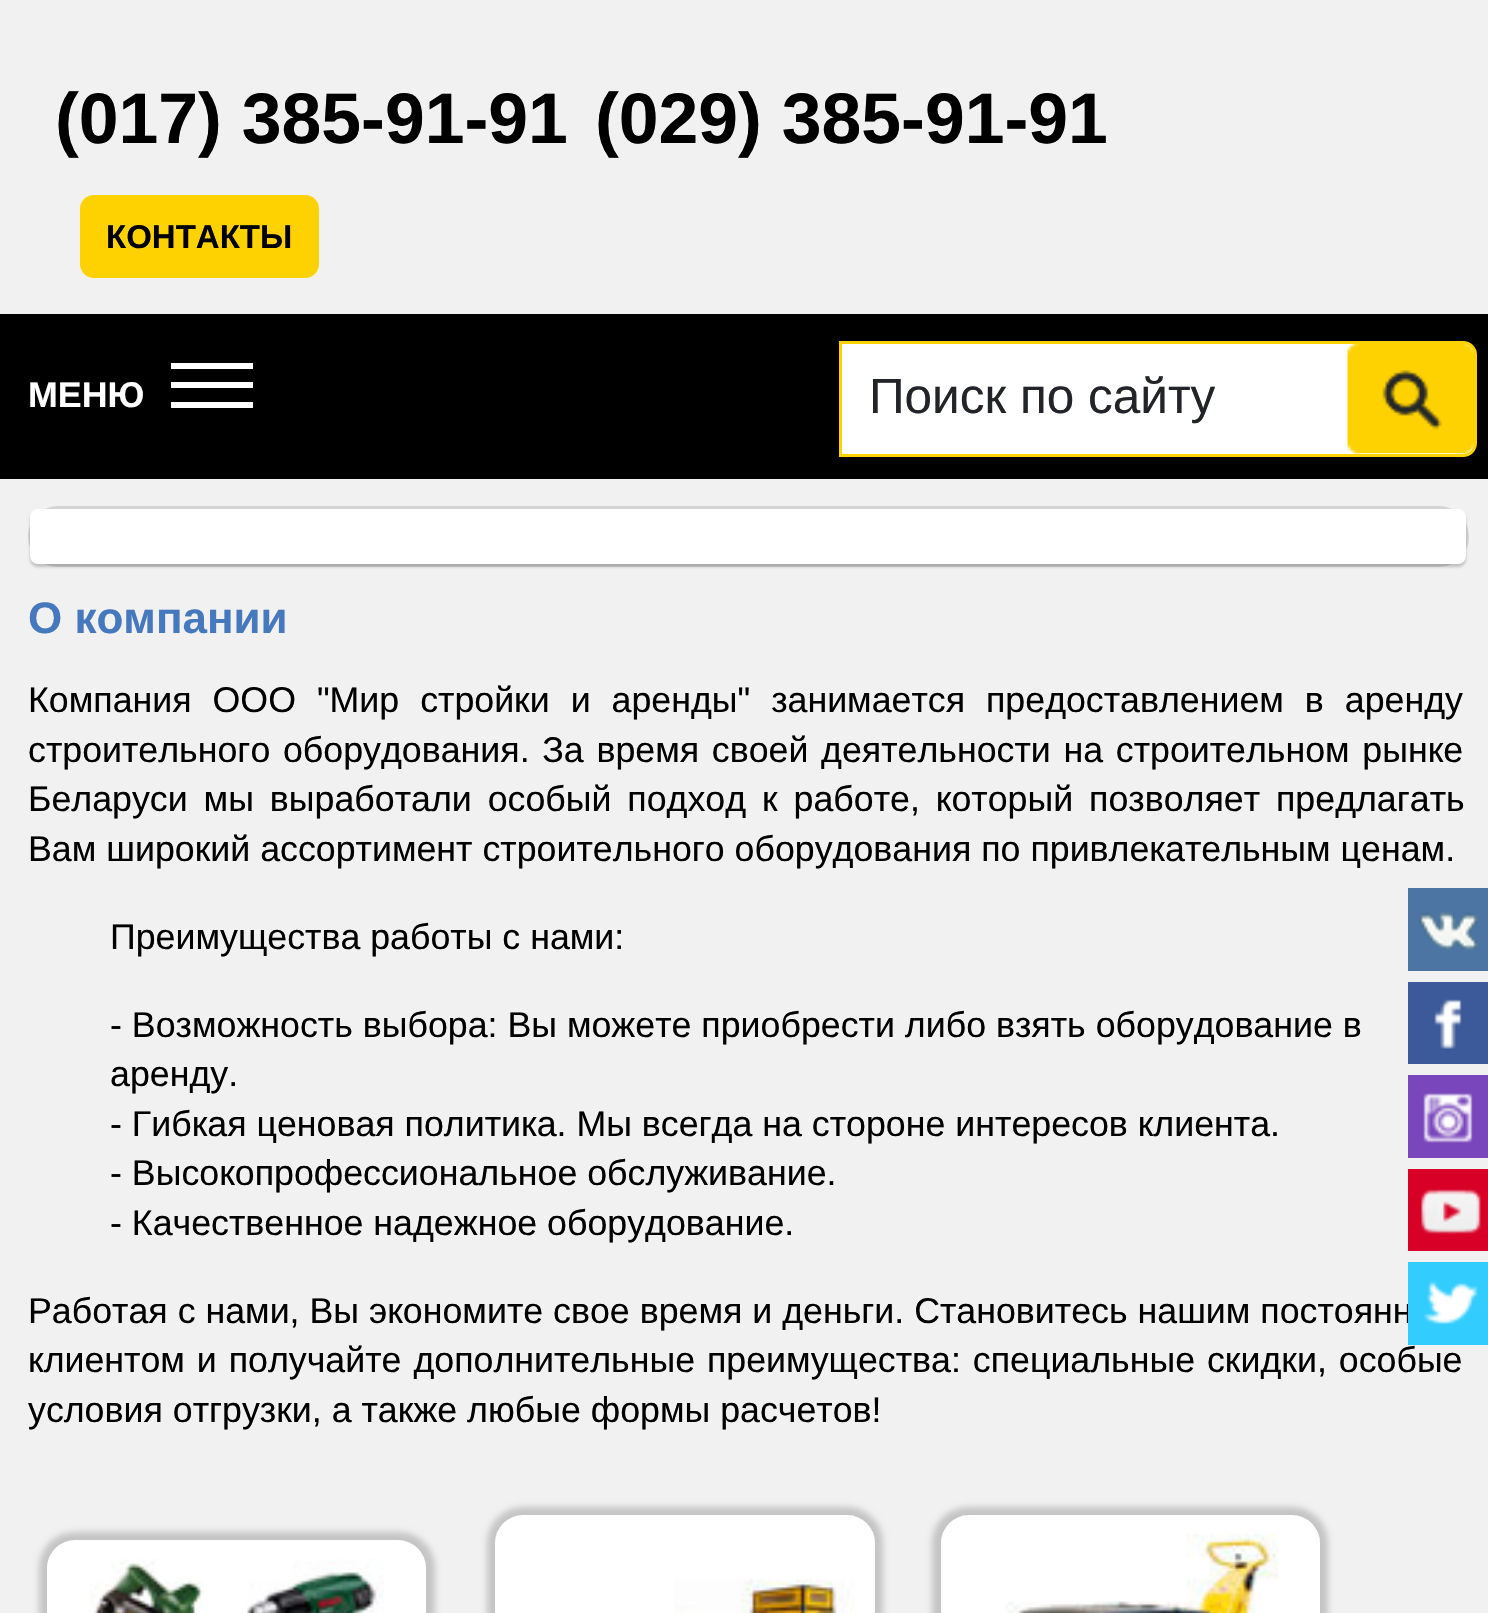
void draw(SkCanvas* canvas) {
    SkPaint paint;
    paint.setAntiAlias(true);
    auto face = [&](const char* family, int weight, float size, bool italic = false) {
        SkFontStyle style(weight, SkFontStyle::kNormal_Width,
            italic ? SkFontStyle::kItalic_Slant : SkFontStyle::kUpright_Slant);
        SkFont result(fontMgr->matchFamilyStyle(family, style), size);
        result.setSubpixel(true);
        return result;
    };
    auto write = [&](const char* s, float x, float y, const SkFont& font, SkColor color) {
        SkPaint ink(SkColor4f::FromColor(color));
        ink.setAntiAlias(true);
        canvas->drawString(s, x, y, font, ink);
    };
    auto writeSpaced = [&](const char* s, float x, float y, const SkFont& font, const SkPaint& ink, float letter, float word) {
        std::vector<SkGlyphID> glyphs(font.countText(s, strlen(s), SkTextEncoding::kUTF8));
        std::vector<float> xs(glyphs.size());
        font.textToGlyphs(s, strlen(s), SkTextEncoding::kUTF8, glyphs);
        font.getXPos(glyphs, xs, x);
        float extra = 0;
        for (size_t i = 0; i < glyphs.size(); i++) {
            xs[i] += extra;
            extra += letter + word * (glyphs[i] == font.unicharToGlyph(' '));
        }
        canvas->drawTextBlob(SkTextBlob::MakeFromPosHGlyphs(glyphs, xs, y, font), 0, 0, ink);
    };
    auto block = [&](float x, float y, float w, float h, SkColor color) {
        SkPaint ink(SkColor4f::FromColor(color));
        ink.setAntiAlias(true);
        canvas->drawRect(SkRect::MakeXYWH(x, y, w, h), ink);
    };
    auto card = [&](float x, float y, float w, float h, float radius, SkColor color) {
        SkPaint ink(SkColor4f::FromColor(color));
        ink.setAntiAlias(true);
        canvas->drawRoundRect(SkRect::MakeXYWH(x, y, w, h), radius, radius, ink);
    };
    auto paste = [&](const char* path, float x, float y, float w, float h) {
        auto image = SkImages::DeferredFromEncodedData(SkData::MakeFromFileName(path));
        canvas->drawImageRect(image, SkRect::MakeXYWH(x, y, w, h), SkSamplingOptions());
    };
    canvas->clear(SkColorSetRGB(241, 241, 241));
    auto kFont1 = face("Liberation Sans", 700, 71.5f);
    write("(017) 385-91-91", 55, 143, kFont1, SK_ColorBLACK);
    write("(029) 385-91-91", 595, 143, kFont1, SK_ColorBLACK);
    card(80, 195, 239, 83, 14, SkColorSetRGB(254, 209, 0));
    auto kFont2 = face("Liberation Sans", 700, 33);
    write("КОНТАКТЫ", 106, 248, kFont2, SK_ColorBLACK);
    block(0, 314, 1488, 165, SK_ColorBLACK);
    auto kFont3 = face("Liberation Sans", 700, 35.75f);
    write("МЕНЮ", 28, 407, kFont3, SK_ColorWHITE);
    block(171, 363, 82, 6, SK_ColorWHITE);
    block(171, 382, 82, 6, SK_ColorWHITE);
    block(171, 402, 82, 6, SK_ColorWHITE);
    paint.setColor(SK_ColorWHITE);
    canvas->drawPath(SkPathBuilder().moveTo(840.5f, 342.5f).lineTo(1463, 342.5f).cubicTo(1470, 342.5f, 1475.5f, 348, 1475.5f, 355).lineTo(1475.5f, 443).cubicTo(1475.5f, 450, 1470, 455.5f, 1463, 455.5f).lineTo(840.5f, 455.5f).close().detach(), paint);
    paint.setStyle(SkPaint::kStroke_Style);
    paint.setStrokeWidth(3);
    paint.setColor(SkColorSetRGB(254, 209, 0));
    canvas->drawPath(SkPathBuilder().moveTo(840.5f, 342.5f).lineTo(1463, 342.5f).cubicTo(1470, 342.5f, 1475.5f, 348, 1475.5f, 355).lineTo(1475.5f, 443).cubicTo(1475.5f, 450, 1470, 455.5f, 1463, 455.5f).lineTo(840.5f, 455.5f).close().detach(), paint);
    auto kFont4 = face("Liberation Sans", 400, 49.5f);
    write("Поиск по сайту", 869, 413, kFont4, SkColorSetRGB(34, 36, 40));
    paste("pic1.png", 1347, 343, 127, 111);
    paint.setColor(SkColorSetRGB(212, 212, 212));
    canvas->drawRoundRect(SkRect::MakeXYWH(29.5f, 507.5f, 1438, 58), 29, 29, paint);
    paint.setStyle(SkPaint::kFill_Style);
    paint.setColor(SkColorSetARGB(51, 0, 0, 0));
    paint.setMaskFilter(SkMaskFilter::MakeBlur(kNormal_SkBlurStyle, 1.5f));
    canvas->drawRoundRect(SkRect::MakeXYWH(30, 512, 1436, 55), 8, 8, paint);
    paint.setMaskFilter(nullptr);
    card(30, 509, 1436, 55, 8, SK_ColorWHITE);
    auto kFont5 = face("Liberation Sans", 700, 44);
    write("О компании", 28, 633, kFont5, SkColorSetRGB(70, 120, 189));
    auto kFont6 = face("Liberation Sans", 400, 35.75f);
    paint.setColor(SK_ColorBLACK);
    writeSpaced("Компания ООО \"Мир стройки и аренды\" занимается предоставлением в аренду", 28, 712, kFont6, paint, 0, 11);
    writeSpaced("строительного оборудования. За время своей деятельности на строительном рынке", 28, 762, kFont6, paint, 0, 2.75f);
    writeSpaced("Беларуси мы выработали особый подход к работе, который позволяет предлагать", 28, 811, kFont6, paint, 0, 6);
    write("Вам широкий ассортимент строительного оборудования по привлекательным ценам.", 28, 861, kFont6, SK_ColorBLACK);
    write("Преимущества работы с нами:", 110, 949, kFont6, SK_ColorBLACK);
    write("- Возможность выбора: Вы можете приобрести либо взять оборудование в", 110, 1037, kFont6, SK_ColorBLACK);
    write("аренду.", 110, 1086, kFont6, SK_ColorBLACK);
    write("- Гибкая ценовая политика. Мы всегда на стороне интересов клиента.", 110, 1136, kFont6, SK_ColorBLACK);
    write("- Высокопрофессиональное обслуживание.", 110, 1185, kFont6, SK_ColorBLACK);
    write("- Качественное надежное оборудование.", 110, 1235, kFont6, SK_ColorBLACK);
    write("Работая с нами, Вы экономите свое время и деньги. Становитесь нашим постоянн", 28, 1323, kFont6, SK_ColorBLACK);
    writeSpaced("клиентом и получайте дополнительные преимущества: специальные скидки, особые", 28, 1372, kFont6, paint, 0, 2);
    write("условия отгрузки, а также любые формы расчетов!", 28, 1422, kFont6, SK_ColorBLACK);
    paint.setColor(SkColorSetRGB(197, 197, 197));
    paint.setMaskFilter(SkMaskFilter::MakeBlur(kNormal_SkBlurStyle, 3));
    canvas->drawRoundRect(SkRect::MakeXYWH(39, 1532, 396, 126), 36, 36, paint);
    paint.setMaskFilter(nullptr);
    card(47, 1540, 379, 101, 28, SK_ColorWHITE);
    paste("pic2.png", 89, 1559, 295, 54);
    paint.setMaskFilter(SkMaskFilter::MakeBlur(kNormal_SkBlurStyle, 3));
    canvas->drawRoundRect(SkRect::MakeXYWH(487, 1507, 396, 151), 36, 36, paint);
    paint.setMaskFilter(nullptr);
    card(495, 1515, 380, 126, 28, SK_ColorWHITE);
    paste("pic3.png", 674, 1579, 181, 34);
    paint.setMaskFilter(SkMaskFilter::MakeBlur(kNormal_SkBlurStyle, 3));
    canvas->drawRoundRect(SkRect::MakeXYWH(932, 1507, 396, 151), 36, 36, paint);
    paint.setMaskFilter(nullptr);
    card(941, 1515, 379, 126, 28, SK_ColorWHITE);
    paste("pic4.png", 1005, 1534, 274, 79);
    block(1408, 888, 80, 83, SkColorSetRGB(76, 117, 163));
    paste("pic5.png", 1418, 912, 60, 38);
    block(1408, 982, 80, 82, SkColorSetRGB(60, 90, 153));
    paste("pic6.png", 1434, 999, 28, 50);
    block(1408, 1075, 80, 83, SkColorSetRGB(122, 70, 187));
    paste("pic7.png", 1423, 1093, 50, 50);
    block(1408, 1169, 80, 82, SkColorSetRGB(216, 0, 39));
    paste("pic8.png", 1421, 1189, 60, 45);
    block(1408, 1262, 80, 83, SkColorSetRGB(50, 204, 254));
    paste("pic9.png", 1423, 1280, 55, 45);
}
